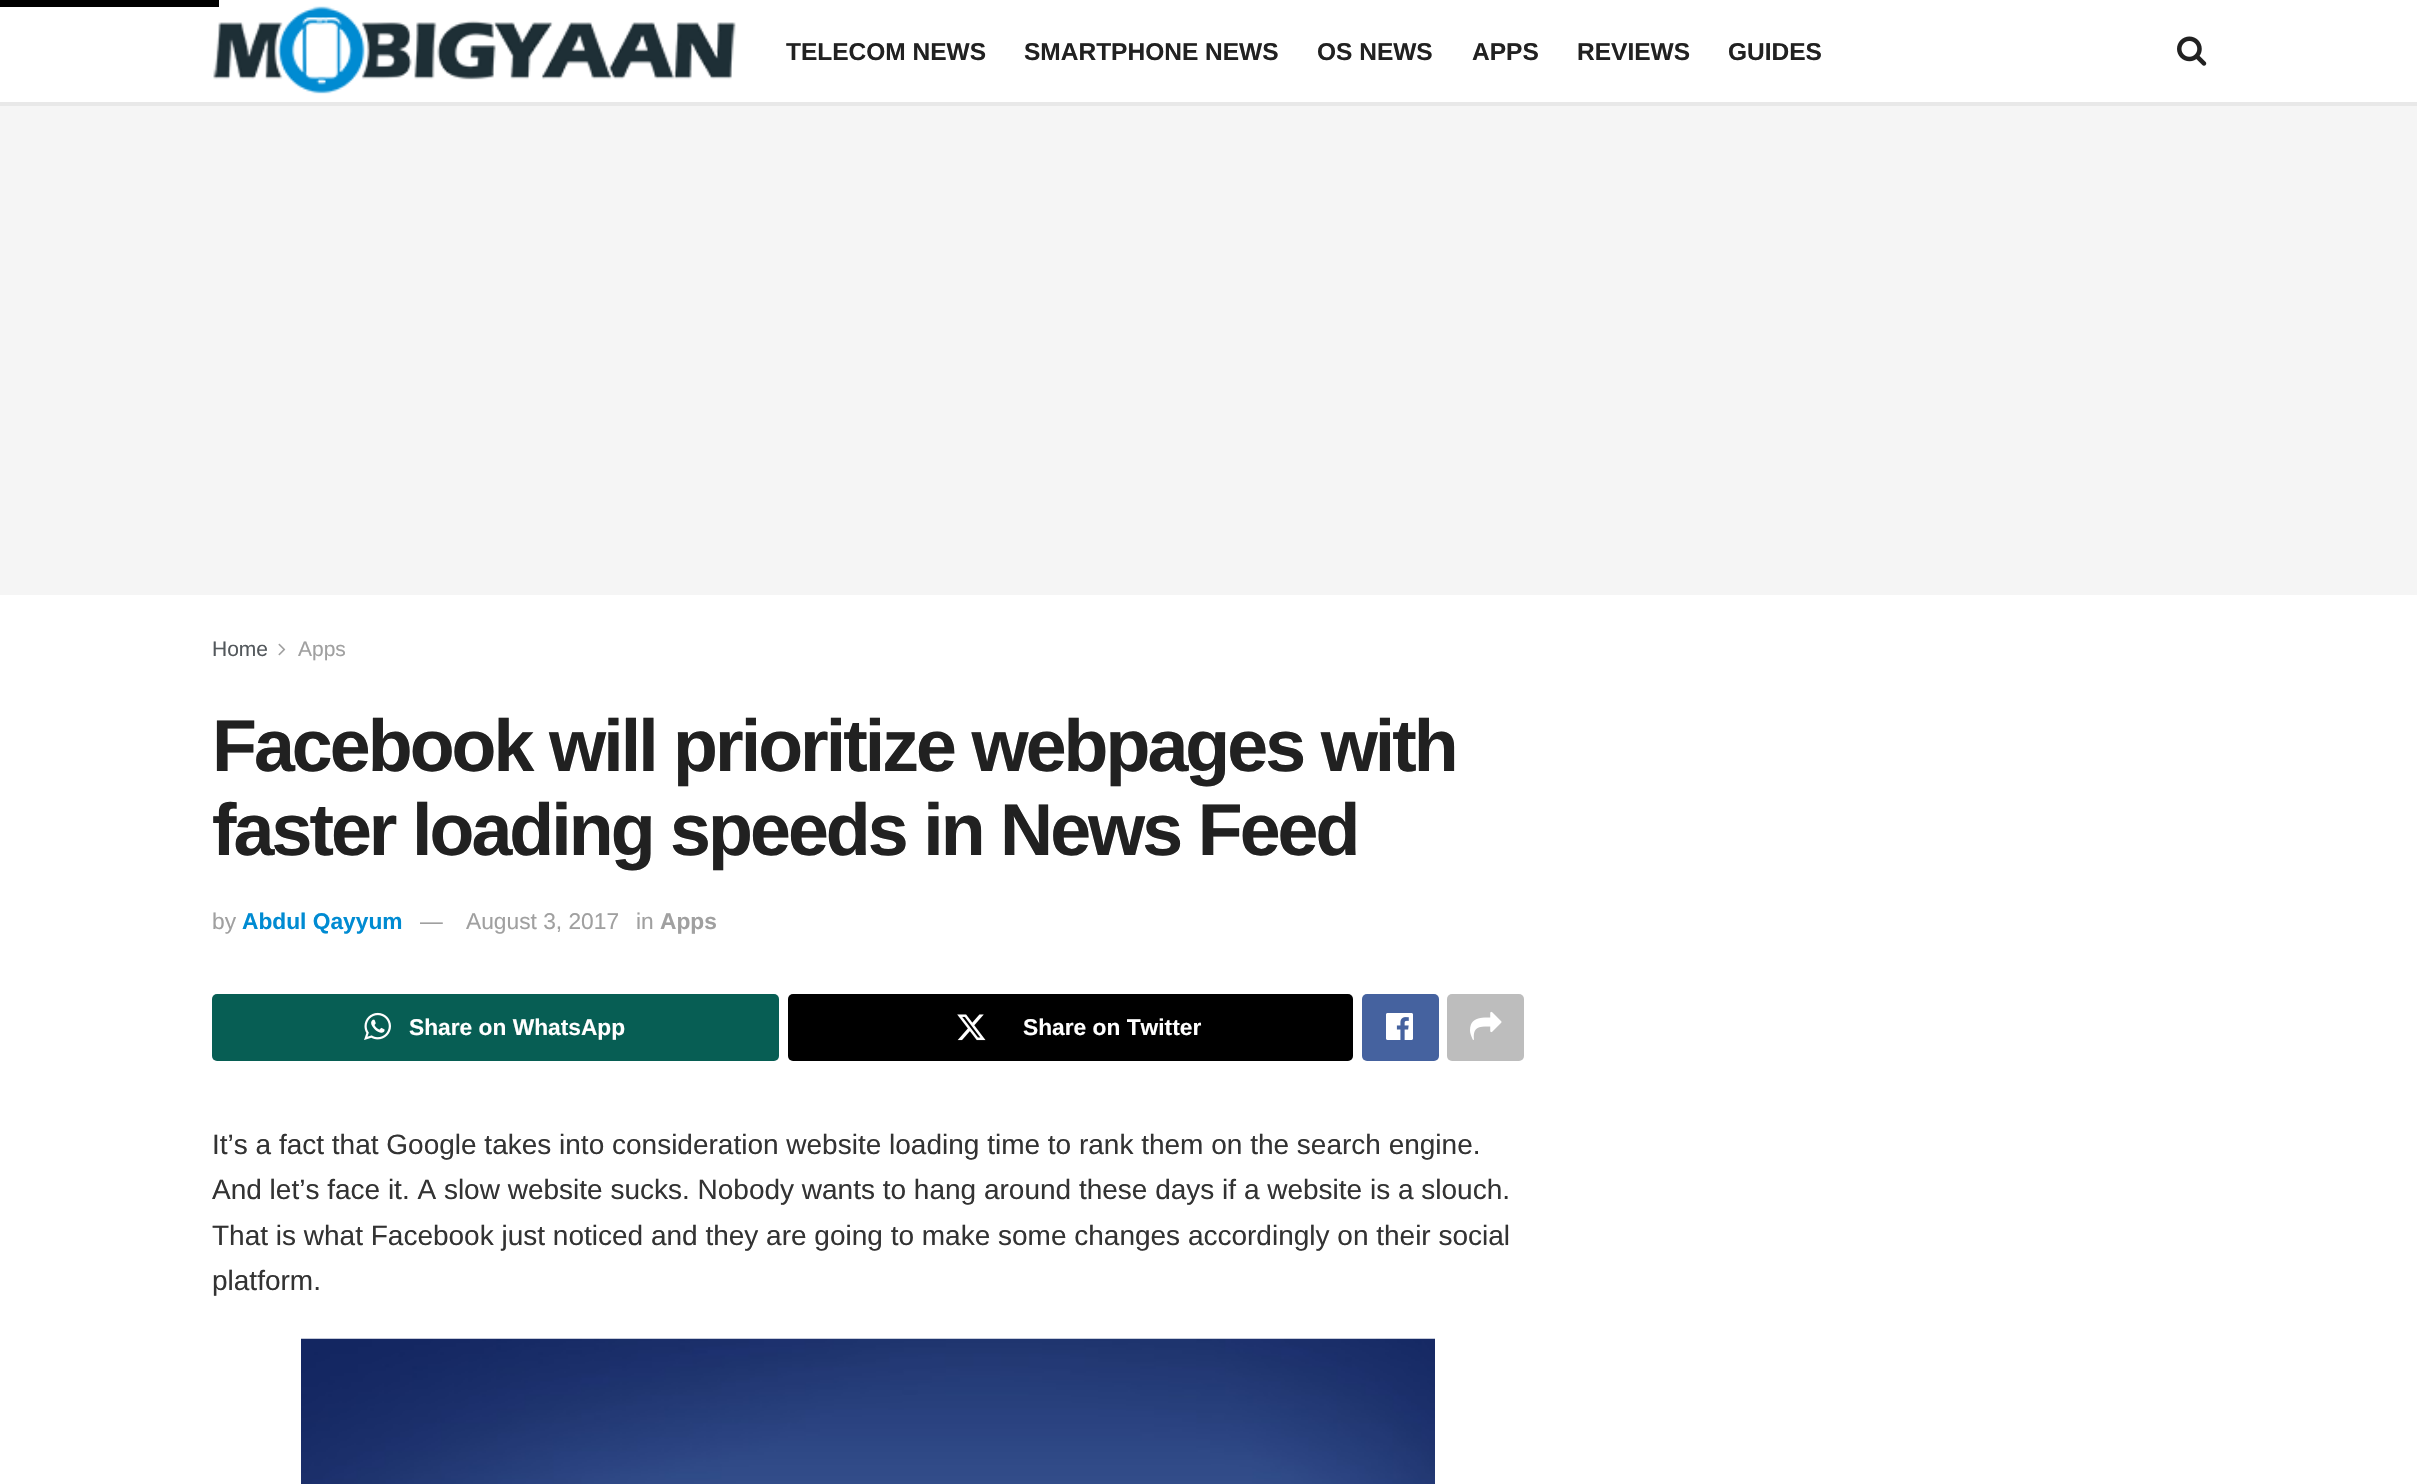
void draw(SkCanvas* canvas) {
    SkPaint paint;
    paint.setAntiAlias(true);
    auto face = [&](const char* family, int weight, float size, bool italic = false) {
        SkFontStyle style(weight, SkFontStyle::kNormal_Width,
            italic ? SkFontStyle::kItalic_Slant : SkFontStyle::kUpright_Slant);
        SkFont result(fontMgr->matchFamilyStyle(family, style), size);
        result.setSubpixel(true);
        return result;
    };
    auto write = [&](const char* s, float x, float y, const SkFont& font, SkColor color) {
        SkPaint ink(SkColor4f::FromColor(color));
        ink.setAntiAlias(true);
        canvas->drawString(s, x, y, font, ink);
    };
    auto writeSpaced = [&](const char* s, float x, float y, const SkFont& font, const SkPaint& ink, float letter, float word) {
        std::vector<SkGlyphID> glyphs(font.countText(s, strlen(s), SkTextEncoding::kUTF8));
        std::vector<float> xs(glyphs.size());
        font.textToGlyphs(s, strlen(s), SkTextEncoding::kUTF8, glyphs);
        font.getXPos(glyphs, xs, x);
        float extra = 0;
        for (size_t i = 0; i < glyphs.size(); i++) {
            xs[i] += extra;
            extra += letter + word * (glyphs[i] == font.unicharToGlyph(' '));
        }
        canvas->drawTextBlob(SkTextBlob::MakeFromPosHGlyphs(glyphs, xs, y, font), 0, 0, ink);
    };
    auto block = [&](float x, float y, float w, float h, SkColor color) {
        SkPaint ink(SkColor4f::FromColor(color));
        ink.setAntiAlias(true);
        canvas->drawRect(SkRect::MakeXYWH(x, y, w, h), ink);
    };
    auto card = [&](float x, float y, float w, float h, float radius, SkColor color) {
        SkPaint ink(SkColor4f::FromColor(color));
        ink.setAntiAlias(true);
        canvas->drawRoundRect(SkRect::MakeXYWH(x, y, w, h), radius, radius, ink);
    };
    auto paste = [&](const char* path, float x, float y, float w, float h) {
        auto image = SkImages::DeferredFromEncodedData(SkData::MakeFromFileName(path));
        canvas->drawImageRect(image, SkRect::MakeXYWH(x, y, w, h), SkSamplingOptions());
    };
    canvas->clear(SK_ColorWHITE);
    paste("pic1.png", 213, 6, 523, 88);
    block(0, 0, 219, 7, SK_ColorBLACK);
    block(0, 102, 2417, 4, SkColorSetRGB(232, 232, 232));
    auto kFont1 = face("Liberation Sans", 700, 24.5f);
    write("TELECOM NEWS", 786, 60, kFont1, SkColorSetRGB(33, 33, 33));
    write("SMARTPHONE NEWS", 1024, 60, kFont1, SkColorSetRGB(33, 33, 33));
    write("OS NEWS", 1317, 60, kFont1, SkColorSetRGB(33, 33, 33));
    write("APPS", 1472, 60, kFont1, SkColorSetRGB(33, 33, 33));
    write("REVIEWS", 1577, 60, kFont1, SkColorSetRGB(33, 33, 33));
    write("GUIDES", 1728, 60, kFont1, SkColorSetRGB(33, 33, 33));
    paste("pic2.png", 2177, 36, 30, 30);
    block(0, 106, 2417, 489, SkColorSetRGB(245, 245, 245));
    auto kFont2 = face("Liberation Sans", 400, 21);
    write("Home", 212, 656, kFont2, SkColorSetRGB(83, 88, 92));
    paste("pic3.png", 278, 643, 8, 13);
    write("Apps", 298, 656, kFont2, SkColorSetRGB(160, 160, 160));
    auto kFont3 = face("Liberation Sans", 700, 73.5f);
    paint.setColor(SkColorSetRGB(33, 33, 33));
    writeSpaced("Facebook will prioritize webpages with", 212, 771, kFont3, paint, -2.95f, 0);
    writeSpaced("faster loading speeds in News Feed", 212, 855, kFont3, paint, -2.95f, 0);
    auto kFont4 = face("Liberation Sans", 400, 22.75f);
    write("by", 212, 929, kFont4, SkColorSetRGB(160, 160, 160));
    auto kFont5 = face("Liberation Sans", 700, 22.75f);
    write("Abdul Qayyum", 242, 929, kFont5, SkColorSetRGB(0, 139, 210));
    write("—", 420, 929, kFont4, SkColorSetRGB(160, 160, 160));
    write("August 3, 2017", 466, 929, kFont4, SkColorSetRGB(160, 160, 160));
    write("in", 636, 929, kFont4, SkColorSetRGB(160, 160, 160));
    write("Apps", 660, 929, kFont5, SkColorSetRGB(160, 160, 160));
    card(212, 994, 567, 67, 5, SkColorSetRGB(7, 94, 84));
    paste("pic4.png", 364, 1012, 27, 28);
    write("Share on WhatsApp", 409, 1035, kFont5, SK_ColorWHITE);
    card(788, 994, 565, 67, 5, SK_ColorBLACK);
    paste("pic5.png", 957, 1014, 29, 27);
    write("Share on Twitter", 1023, 1035, kFont5, SK_ColorWHITE);
    card(1362, 994, 77, 67, 5, SkColorSetRGB(69, 98, 159));
    paste("pic6.png", 1386, 1013, 27, 27);
    card(1447, 994, 77, 67, 5, SkColorSetRGB(189, 189, 189));
    paste("pic7.png", 1470, 1011, 32, 29);
    auto kFont6 = face("Liberation Sans", 400, 28);
    write("It’s a fact that Google takes into consideration website loading time to rank them on the search engine.", 212, 1154, kFont6, SkColorSetRGB(51, 51, 51));
    write("And let’s face it. A slow website sucks. Nobody wants to hang around these days if a website is a slouch.", 212, 1199, kFont6, SkColorSetRGB(51, 51, 51));
    write("That is what Facebook just noticed and they are going to make some changes accordingly on their social", 212, 1245, kFont6, SkColorSetRGB(51, 51, 51));
    write("platform.", 212, 1290, kFont6, SkColorSetRGB(51, 51, 51));
    paste("pic8.png", 301, 1338, 1134, 146);
}
